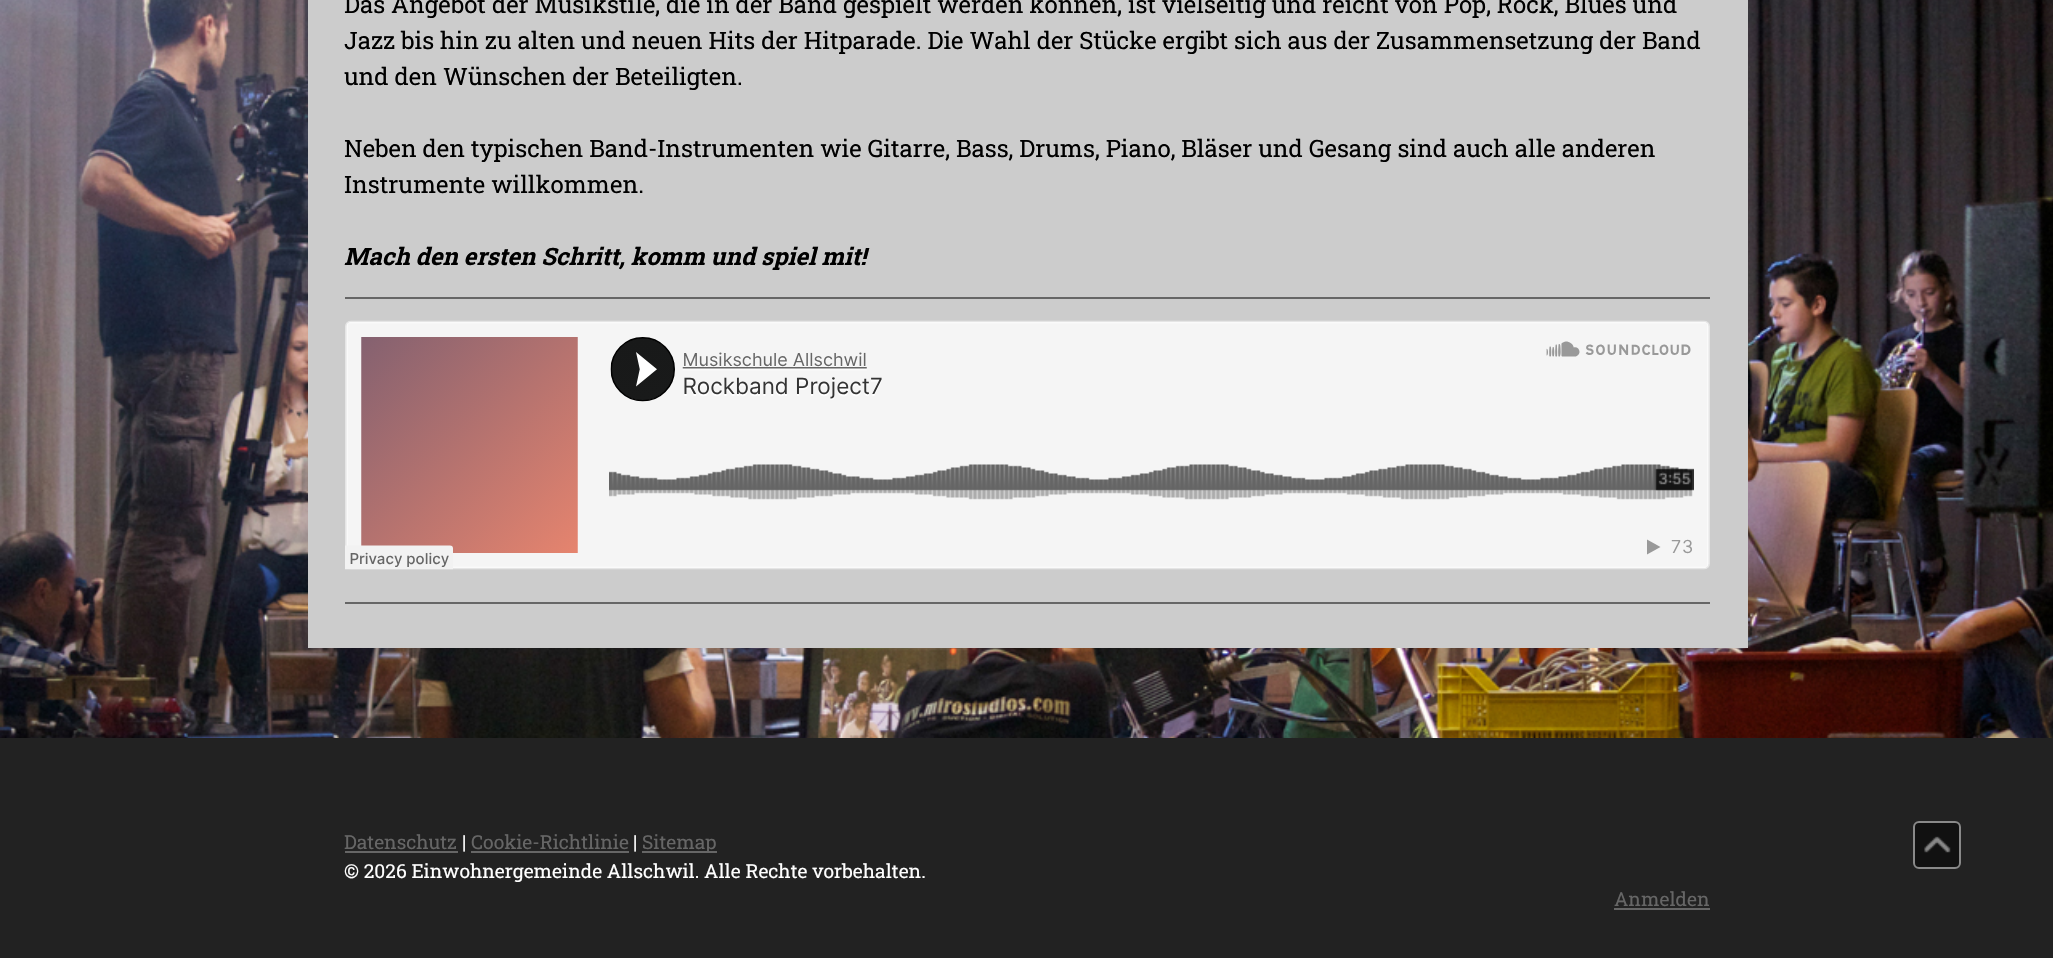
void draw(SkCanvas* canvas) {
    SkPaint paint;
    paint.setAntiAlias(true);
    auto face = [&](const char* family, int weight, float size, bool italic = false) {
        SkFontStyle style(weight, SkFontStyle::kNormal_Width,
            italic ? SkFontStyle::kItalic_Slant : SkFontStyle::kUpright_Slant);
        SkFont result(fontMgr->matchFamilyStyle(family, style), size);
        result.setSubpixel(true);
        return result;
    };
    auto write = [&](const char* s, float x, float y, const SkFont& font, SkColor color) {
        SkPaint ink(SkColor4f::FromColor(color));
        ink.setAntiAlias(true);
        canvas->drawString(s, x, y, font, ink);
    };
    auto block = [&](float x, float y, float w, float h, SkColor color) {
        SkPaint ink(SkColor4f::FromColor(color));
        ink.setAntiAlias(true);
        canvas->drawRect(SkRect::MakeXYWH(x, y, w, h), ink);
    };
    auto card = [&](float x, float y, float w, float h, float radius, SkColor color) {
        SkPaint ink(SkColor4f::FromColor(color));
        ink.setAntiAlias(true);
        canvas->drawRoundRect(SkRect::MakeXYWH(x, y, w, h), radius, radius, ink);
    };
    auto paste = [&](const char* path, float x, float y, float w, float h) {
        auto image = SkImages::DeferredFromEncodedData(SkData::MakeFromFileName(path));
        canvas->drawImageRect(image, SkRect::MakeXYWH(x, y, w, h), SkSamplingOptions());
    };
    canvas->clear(SK_ColorWHITE);
    paste("pic1.png", 0, 0, 2053, 738);
    block(308, 0, 1440, 648, SkColorSetRGB(204, 204, 204));
    auto kFont1 = face("Roboto Slab", 400, 24);
    write("Das Angebot der Musikstile, die in der Band gespielt werden können, ist vielseitig und reicht von Pop, Rock, Blues und", 344, 13, kFont1, SK_ColorBLACK);
    write("Jazz bis hin zu alten und neuen Hits der Hitparade. Die Wahl der Stücke ergibt sich aus der Zusammensetzung der Band", 344, 49, kFont1, SK_ColorBLACK);
    write("und den Wünschen der Beteiligten.", 344, 85, kFont1, SK_ColorBLACK);
    write("Neben den typischen Band-Instrumenten wie Gitarre, Bass, Drums, Piano, Bläser und Gesang sind auch alle anderen", 344, 157, kFont1, SK_ColorBLACK);
    write("Instrumente willkommen.", 344, 193, kFont1, SK_ColorBLACK);
    auto kFont2 = face("Roboto Slab", 700, 24, true);
    write("Mach den ersten Schritt, komm und spiel mit!", 344, 265, kFont2, SK_ColorBLACK);
    block(345, 297, 1365, 2, SkColorSetRGB(102, 102, 102));
    paste("pic2.png", 345, 320, 1365, 250);
    block(345, 602, 1365, 2, SkColorSetRGB(102, 102, 102));
    block(0, 738, 2053, 220, SkColorSetRGB(34, 34, 34));
    auto kFont3 = face("Roboto Slab", 400, 19.2f);
    write("Datenschutz", 344, 849, kFont3, SkColorSetRGB(102, 102, 102));
    block(345, 851, 113, 2, SkColorSetRGB(102, 102, 102));
    write("|", 462, 849, kFont3, SK_ColorWHITE);
    write("Cookie-Richtlinie", 471, 849, kFont3, SkColorSetRGB(102, 102, 102));
    block(471, 851, 158, 2, SkColorSetRGB(102, 102, 102));
    write("|", 633, 849, kFont3, SK_ColorWHITE);
    block(642, 851, 75, 2, SkColorSetRGB(102, 102, 102));
    write("Sitemap", 642, 849, kFont3, SkColorSetRGB(102, 102, 102));
    write("© 2026 Einwohnergemeinde Allschwil. Alle Rechte vorbehalten.", 344, 878, kFont3, SK_ColorWHITE);
    write("Anmelden", 1614, 906, kFont3, SkColorSetRGB(102, 102, 102));
    block(1614, 908, 96, 2, SkColorSetRGB(102, 102, 102));
    card(1913, 821, 48, 48, 6, SkColorSetRGB(17, 17, 17));
    paint.setStyle(SkPaint::kStroke_Style);
    paint.setStrokeWidth(2);
    paint.setColor(SkColorSetARGB(128, 255, 255, 255));
    canvas->drawRoundRect(SkRect::MakeXYWH(1914, 822, 46, 46), 5, 5, paint);
    paste("pic3.png", 1924, 836, 27, 17);
}
